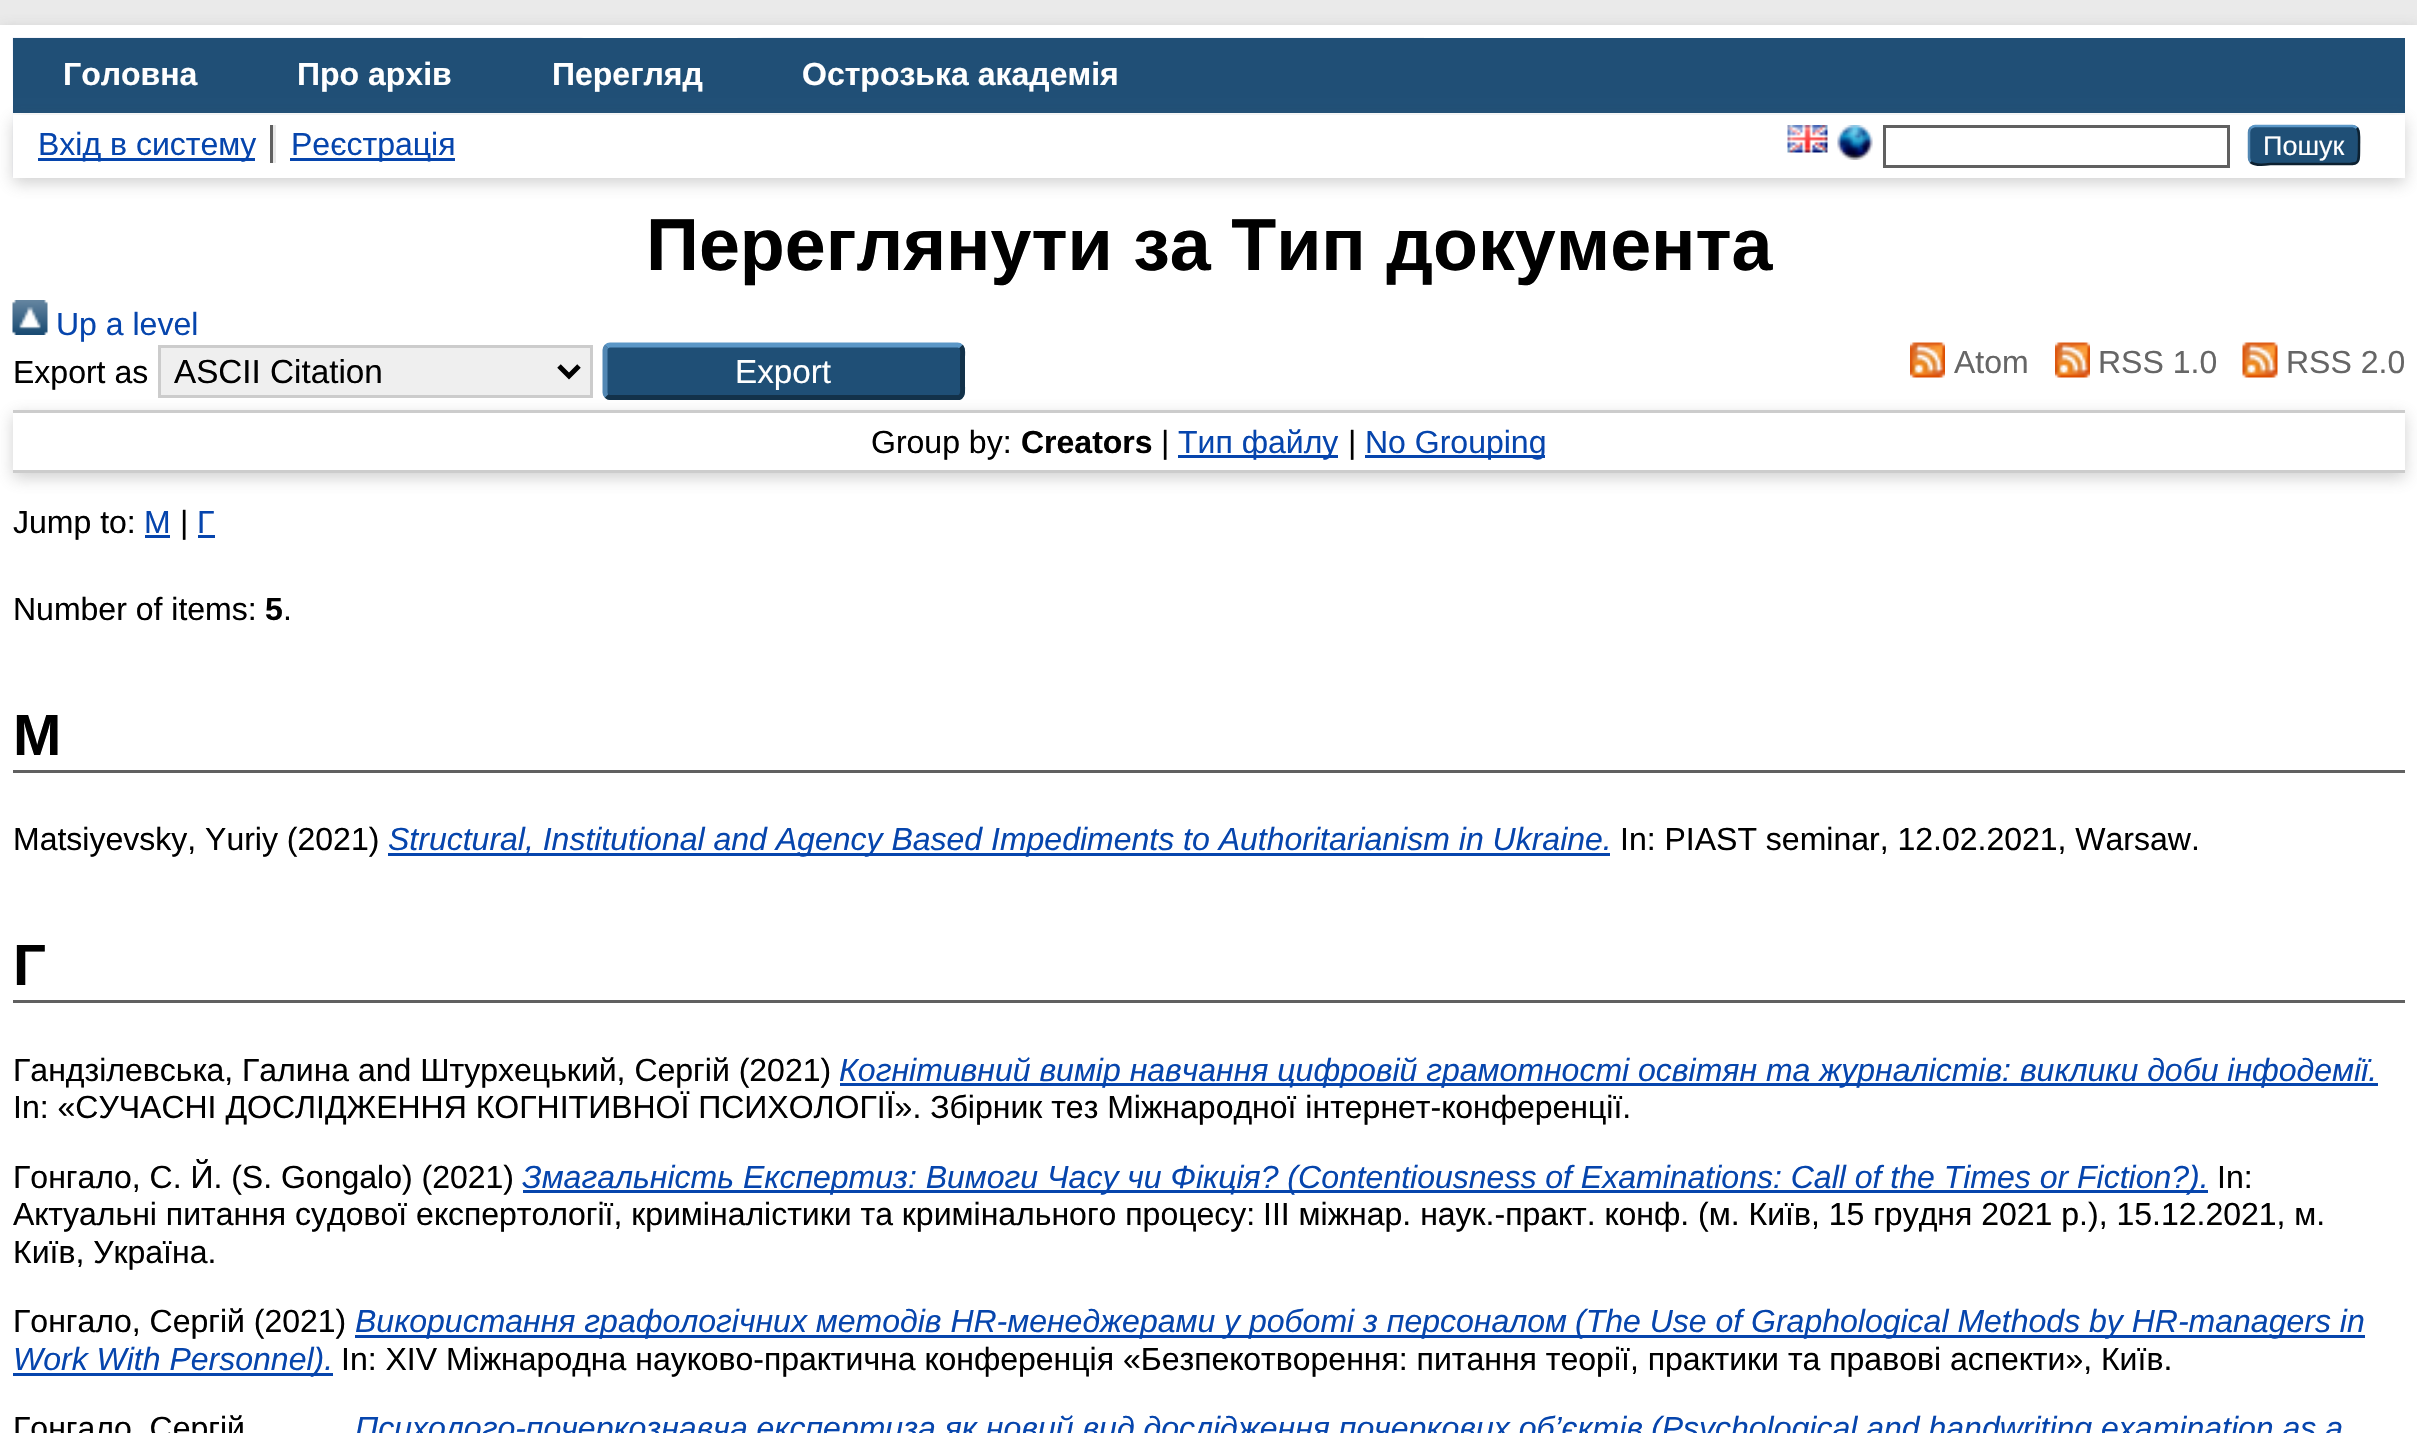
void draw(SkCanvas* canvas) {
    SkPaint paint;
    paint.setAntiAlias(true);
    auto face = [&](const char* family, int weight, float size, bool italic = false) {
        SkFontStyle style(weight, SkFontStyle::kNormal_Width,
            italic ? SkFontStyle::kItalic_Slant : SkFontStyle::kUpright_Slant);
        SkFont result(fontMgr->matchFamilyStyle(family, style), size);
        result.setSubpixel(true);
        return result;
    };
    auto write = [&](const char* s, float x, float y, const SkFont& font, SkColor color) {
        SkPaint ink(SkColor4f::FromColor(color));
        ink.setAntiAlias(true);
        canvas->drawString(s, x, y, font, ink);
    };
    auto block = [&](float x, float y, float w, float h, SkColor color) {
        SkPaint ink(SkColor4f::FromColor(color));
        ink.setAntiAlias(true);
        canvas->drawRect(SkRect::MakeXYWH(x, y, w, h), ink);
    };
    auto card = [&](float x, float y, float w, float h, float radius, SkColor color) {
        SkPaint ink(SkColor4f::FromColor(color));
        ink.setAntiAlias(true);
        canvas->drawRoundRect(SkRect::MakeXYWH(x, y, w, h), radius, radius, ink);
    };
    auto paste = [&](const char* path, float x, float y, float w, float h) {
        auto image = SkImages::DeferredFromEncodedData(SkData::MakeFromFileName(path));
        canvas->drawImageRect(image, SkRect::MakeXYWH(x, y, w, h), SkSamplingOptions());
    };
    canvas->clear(SkColorSetRGB(234, 234, 234));
    paint.setColor(SkColorSetARGB(77, 100, 100, 100));
    paint.setMaskFilter(SkMaskFilter::MakeBlur(kNormal_SkBlurStyle, 7.5f));
    canvas->drawRect(SkRect::MakeXYWH(0, 30, 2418, 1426), paint);
    paint.setMaskFilter(nullptr);
    block(0, 25, 2417, 1408, SK_ColorWHITE);
    paste("pic1.png", 12, 37, 1412, 140);
    block(13, 38, 2392, 75, SkColorSetRGB(32, 79, 118));
    block(13, 113, 1411, 2, SK_ColorWHITE);
    auto kFont1 = face("Liberation Sans", 700, 32);
    write("Головна", 63, 85, kFont1, SK_ColorWHITE);
    write("Про архів", 297, 85, kFont1, SK_ColorWHITE);
    write("Перегляд", 552, 85, kFont1, SK_ColorWHITE);
    write("Острозька академія", 802, 85, kFont1, SK_ColorWHITE);
    paint.setMaskFilter(SkMaskFilter::MakeBlur(kNormal_SkBlurStyle, 7.5f));
    canvas->drawRect(SkRect::MakeXYWH(13, 120, 2392, 63), paint);
    paint.setMaskFilter(nullptr);
    block(13, 115, 2392, 63, SK_ColorWHITE);
    block(270, 125, 3, 38, SkColorSetRGB(96, 96, 96));
    block(38, 158, 217, 3, SkColorSetRGB(6, 69, 173));
    auto kFont2 = face("Liberation Sans", 400, 32);
    write("Вхід в систему", 38, 155, kFont2, SkColorSetRGB(6, 69, 173));
    block(273, 125, 3, 38, SkColorSetRGB(232, 232, 232));
    block(290, 158, 165, 3, SkColorSetRGB(6, 69, 173));
    write("Реєстрація", 291, 155, kFont2, SkColorSetRGB(6, 69, 173));
    paste("pic2.png", 1787, 125, 41, 28);
    paste("pic3.png", 1837, 125, 36, 35);
    paint.setStyle(SkPaint::kStroke_Style);
    paint.setStrokeWidth(3);
    paint.setColor(SkColorSetRGB(96, 96, 96));
    canvas->drawRect(SkRect::MakeXYWH(1884.5f, 126.5f, 344, 40), paint);
    card(2248, 125, 112, 40, 8, SkColorSetRGB(31, 79, 118));
    paint.setStrokeWidth(2.5f);
    paint.setColor(SkColorSetRGB(91, 151, 199));
    canvas->drawPath(SkPathBuilder().moveTo(2250.5f, 128).cubicTo(2252, 127, 2253.5f, 126, 2255, 126).lineTo(2352.5f, 126).cubicTo(2354, 126, 2355.5f, 127, 2357, 128).detach(), paint);
    paint.setColor(SkColorSetRGB(13, 33, 49));
    canvas->drawPath(SkPathBuilder().moveTo(2357, 128).cubicTo(2360, 131.5f, 2359, 141, 2359, 145).cubicTo(2359, 167, 2360, 164, 2336, 164).lineTo(2271, 164).cubicTo(2270.5f, 164, 2255, 166.5f, 2250.5f, 162).detach(), paint);
    paint.setColor(SkColorSetRGB(82, 135, 179));
    canvas->drawPath(SkPathBuilder().moveTo(2250.5f, 162).cubicTo(2249.5f, 160.5f, 2249, 159, 2249, 157.5f).lineTo(2249, 132.5f).cubicTo(2249, 131, 2249.5f, 129.5f, 2250.5f, 128).detach(), paint);
    auto kFont3 = face("Liberation Sans", 400, 27);
    write("Пошук", 2263, 155, kFont3, SK_ColorWHITE);
    auto kFont4 = face("Liberation Sans", 700, 73.6f);
    write("Переглянути за Тип документа", 646, 270, kFont4, SK_ColorBLACK);
    paste("pic4.png", 12, 300, 36, 35);
    write("Up a level", 56, 335, kFont2, SkColorSetRGB(6, 69, 173));
    write("Export as", 13, 383, kFont2, SK_ColorBLACK);
    paint.setStyle(SkPaint::kFill_Style);
    paint.setColor(SkColorSetARGB(77, 100, 100, 100));
    paint.setMaskFilter(SkMaskFilter::MakeBlur(kNormal_SkBlurStyle, 7.5f));
    canvas->drawRect(SkRect::MakeXYWH(13, 415, 2392, 63), paint);
    paint.setMaskFilter(nullptr);
    paint.setColor(SkColorSetRGB(239, 239, 239));
    canvas->drawRect(SkRect::MakeXYWH(159.5f, 346.5f, 432, 50), paint);
    paint.setStyle(SkPaint::kStroke_Style);
    paint.setStrokeWidth(3);
    paint.setColor(SkColorSetRGB(204, 204, 204));
    canvas->drawRect(SkRect::MakeXYWH(159.5f, 346.5f, 432, 50), paint);
    paint.setStrokeWidth(5);
    paint.setColor(SK_ColorBLACK);
    canvas->drawPath(SkPathBuilder().moveTo(559, 366).lineTo(569, 376).lineTo(579, 366).detach(), paint);
    auto kFont5 = face("Liberation Sans", 400, 33.25f);
    write("ASCII Citation", 174, 383, kFont5, SK_ColorBLACK);
    card(603, 343, 362, 57, 8, SkColorSetRGB(31, 79, 118));
    paint.setColor(SkColorSetRGB(91, 151, 199));
    canvas->drawPath(SkPathBuilder().moveTo(606.5f, 346.5f).cubicTo(607.5f, 345.5f, 608.5f, 345, 610, 345).lineTo(957.5f, 345).cubicTo(959, 345, 960, 345.5f, 961, 346.5f).detach(), paint);
    paint.setColor(SkColorSetRGB(19, 50, 74));
    canvas->drawPath(SkPathBuilder().moveTo(961, 346.5f).cubicTo(963.5f, 349, 962.5f, 354.5f, 962.5f, 357).lineTo(962.5f, 385.5f).cubicTo(962.5f, 389, 964, 396, 959, 397.5f).lineTo(610, 397.5f).cubicTo(608.5f, 397.5f, 607.5f, 397, 606.5f, 396).detach(), paint);
    paint.setColor(SkColorSetRGB(82, 135, 179));
    canvas->drawPath(SkPathBuilder().moveTo(606.5f, 396).cubicTo(605.5f, 395, 605, 394, 605, 392.5f).lineTo(605, 350).cubicTo(605, 348.5f, 605.5f, 347.5f, 606.5f, 346.5f).detach(), paint);
    write("Export", 735, 383, kFont5, SK_ColorWHITE);
    paste("pic5.png", 1910, 342, 35, 36);
    write("Atom", 1954, 373, kFont2, SkColorSetRGB(102, 102, 102));
    paste("pic5.png", 2055, 342, 35, 36);
    write("RSS 1.0", 2098, 373, kFont2, SkColorSetRGB(102, 102, 102));
    paste("pic6.png", 2242, 342, 36, 36);
    write("RSS 2.0", 2286, 373, kFont2, SkColorSetRGB(102, 102, 102));
    block(13, 413, 2392, 57, SK_ColorWHITE);
    block(13, 410, 2392, 3, SkColorSetRGB(204, 204, 204));
    block(13, 470, 2392, 3, SkColorSetRGB(204, 204, 204));
    write("Group by:", 871, 453, kFont2, SK_ColorBLACK);
    write("Creators", 1021, 453, kFont1, SK_ColorBLACK);
    write("|", 1161, 453, kFont2, SK_ColorBLACK);
    block(1178, 455, 160, 3, SkColorSetRGB(6, 69, 173));
    write("Тип файлу", 1178, 453, kFont2, SkColorSetRGB(6, 69, 173));
    write("|", 1348, 453, kFont2, SK_ColorBLACK);
    block(1365, 455, 180, 3, SkColorSetRGB(6, 69, 173));
    write("No Grouping", 1365, 453, kFont2, SkColorSetRGB(6, 69, 173));
    write("Jump to:", 13, 533, kFont2, SK_ColorBLACK);
    write("M", 144, 533, kFont2, SkColorSetRGB(6, 69, 173));
    block(145, 535, 25, 3, SkColorSetRGB(6, 69, 173));
    write("|", 180, 533, kFont2, SK_ColorBLACK);
    write("Г", 197, 533, kFont2, SkColorSetRGB(6, 69, 173));
    block(198, 535, 17, 3, SkColorSetRGB(6, 69, 173));
    write("Number of items:", 13, 620, kFont2, SK_ColorBLACK);
    write("5", 265, 620, kFont1, SK_ColorBLACK);
    write(".", 283, 620, kFont2, SK_ColorBLACK);
    block(13, 770, 2392, 3, SkColorSetRGB(96, 96, 96));
    auto kFont6 = face("Liberation Sans", 700, 58);
    write("M", 13, 755, kFont6, SK_ColorBLACK);
    write("Matsiyevsky, Yuriy (2021)", 13, 850, kFont2, SK_ColorBLACK);
    block(388, 853, 1222, 3, SkColorSetRGB(6, 69, 173));
    auto kFont7 = face("Liberation Sans", 400, 32, true);
    write("Structural, Institutional and Agency Based Impediments to Authoritarianism in Ukraine.", 388, 850, kFont7, SkColorSetRGB(6, 69, 173));
    write("In: PIAST seminar, 12.02.2021, Warsaw.", 1620, 850, kFont2, SK_ColorBLACK);
    block(13, 1000, 2392, 3, SkColorSetRGB(96, 96, 96));
    write("Г", 13, 985, kFont6, SK_ColorBLACK);
    write("Гандзілевська, Галина and Штурхецький, Сергій (2021)", 13, 1081, kFont2, SK_ColorBLACK);
    block(840, 1083, 1538, 3, SkColorSetRGB(6, 69, 173));
    write("Когнітивний вимір навчання цифровій грамотності освітян та журналістів: виклики доби інфодемії.", 839, 1081, kFont7, SkColorSetRGB(6, 69, 173));
    write("In: «СУЧАСНІ ДОСЛІДЖЕННЯ КОГНІТИВНОЇ ПСИХОЛОГІЇ». Збірник тез Міжнародної інтернет-конференції.", 13, 1118, kFont2, SK_ColorBLACK);
    write("Гонгало, С. Й. (S. Gongalo) (2021)", 13, 1188, kFont2, SK_ColorBLACK);
    block(523, 1190, 1685, 3, SkColorSetRGB(6, 69, 173));
    write("Змагальність Експертиз: Вимоги Часу чи Фікція? (Сontentiousness of Examinations: Call of the Times or Fiction?).", 522, 1188, kFont7, SkColorSetRGB(6, 69, 173));
    write("In:", 2217, 1188, kFont2, SK_ColorBLACK);
    write("Актуальні питання судової експертології, криміналістики та кримінального процесу:", 13, 1225, kFont2, SK_ColorBLACK);
    write("IIІ міжнар. наук.-практ. конф. (м. Київ, 15 грудня 2021 р.), 15.12.2021, м.", 1263, 1225, kFont2, SK_ColorBLACK);
    write("Київ, Україна.", 13, 1263, kFont2, SK_ColorBLACK);
    write("Гонгало, Сергій (2021)", 13, 1332, kFont2, SK_ColorBLACK);
    block(355, 1335, 2010, 3, SkColorSetRGB(6, 69, 173));
    write("Використання графологічних методів HR-менеджерами у роботі з персоналом", 355, 1332, kFont7, SkColorSetRGB(6, 69, 173));
    write("(The Use of Graphological Methods by HR-managers in", 1575, 1332, kFont7, SkColorSetRGB(6, 69, 173));
    block(13, 1373, 320, 3, SkColorSetRGB(6, 69, 173));
    write("Work With Personnel).", 13, 1370, kFont7, SkColorSetRGB(6, 69, 173));
    write("In: XIV Міжнародна науково-практична конференція «Безпекотворення: питання теорії, практики та правові аспекти», Київ.", 341, 1370, kFont2, SK_ColorBLACK);
    write("Гонгало, Сергій", 13, 1439, kFont2, SK_ColorBLACK);
    write("Психолого-почеркознавча експертиза як новий вид дослідження почеркових об’єктів", 355, 1439, kFont7, SkColorSetRGB(6, 69, 173));
    write("(Psychological and handwriting examination as a", 1651, 1439, kFont7, SkColorSetRGB(6, 69, 173));
}
